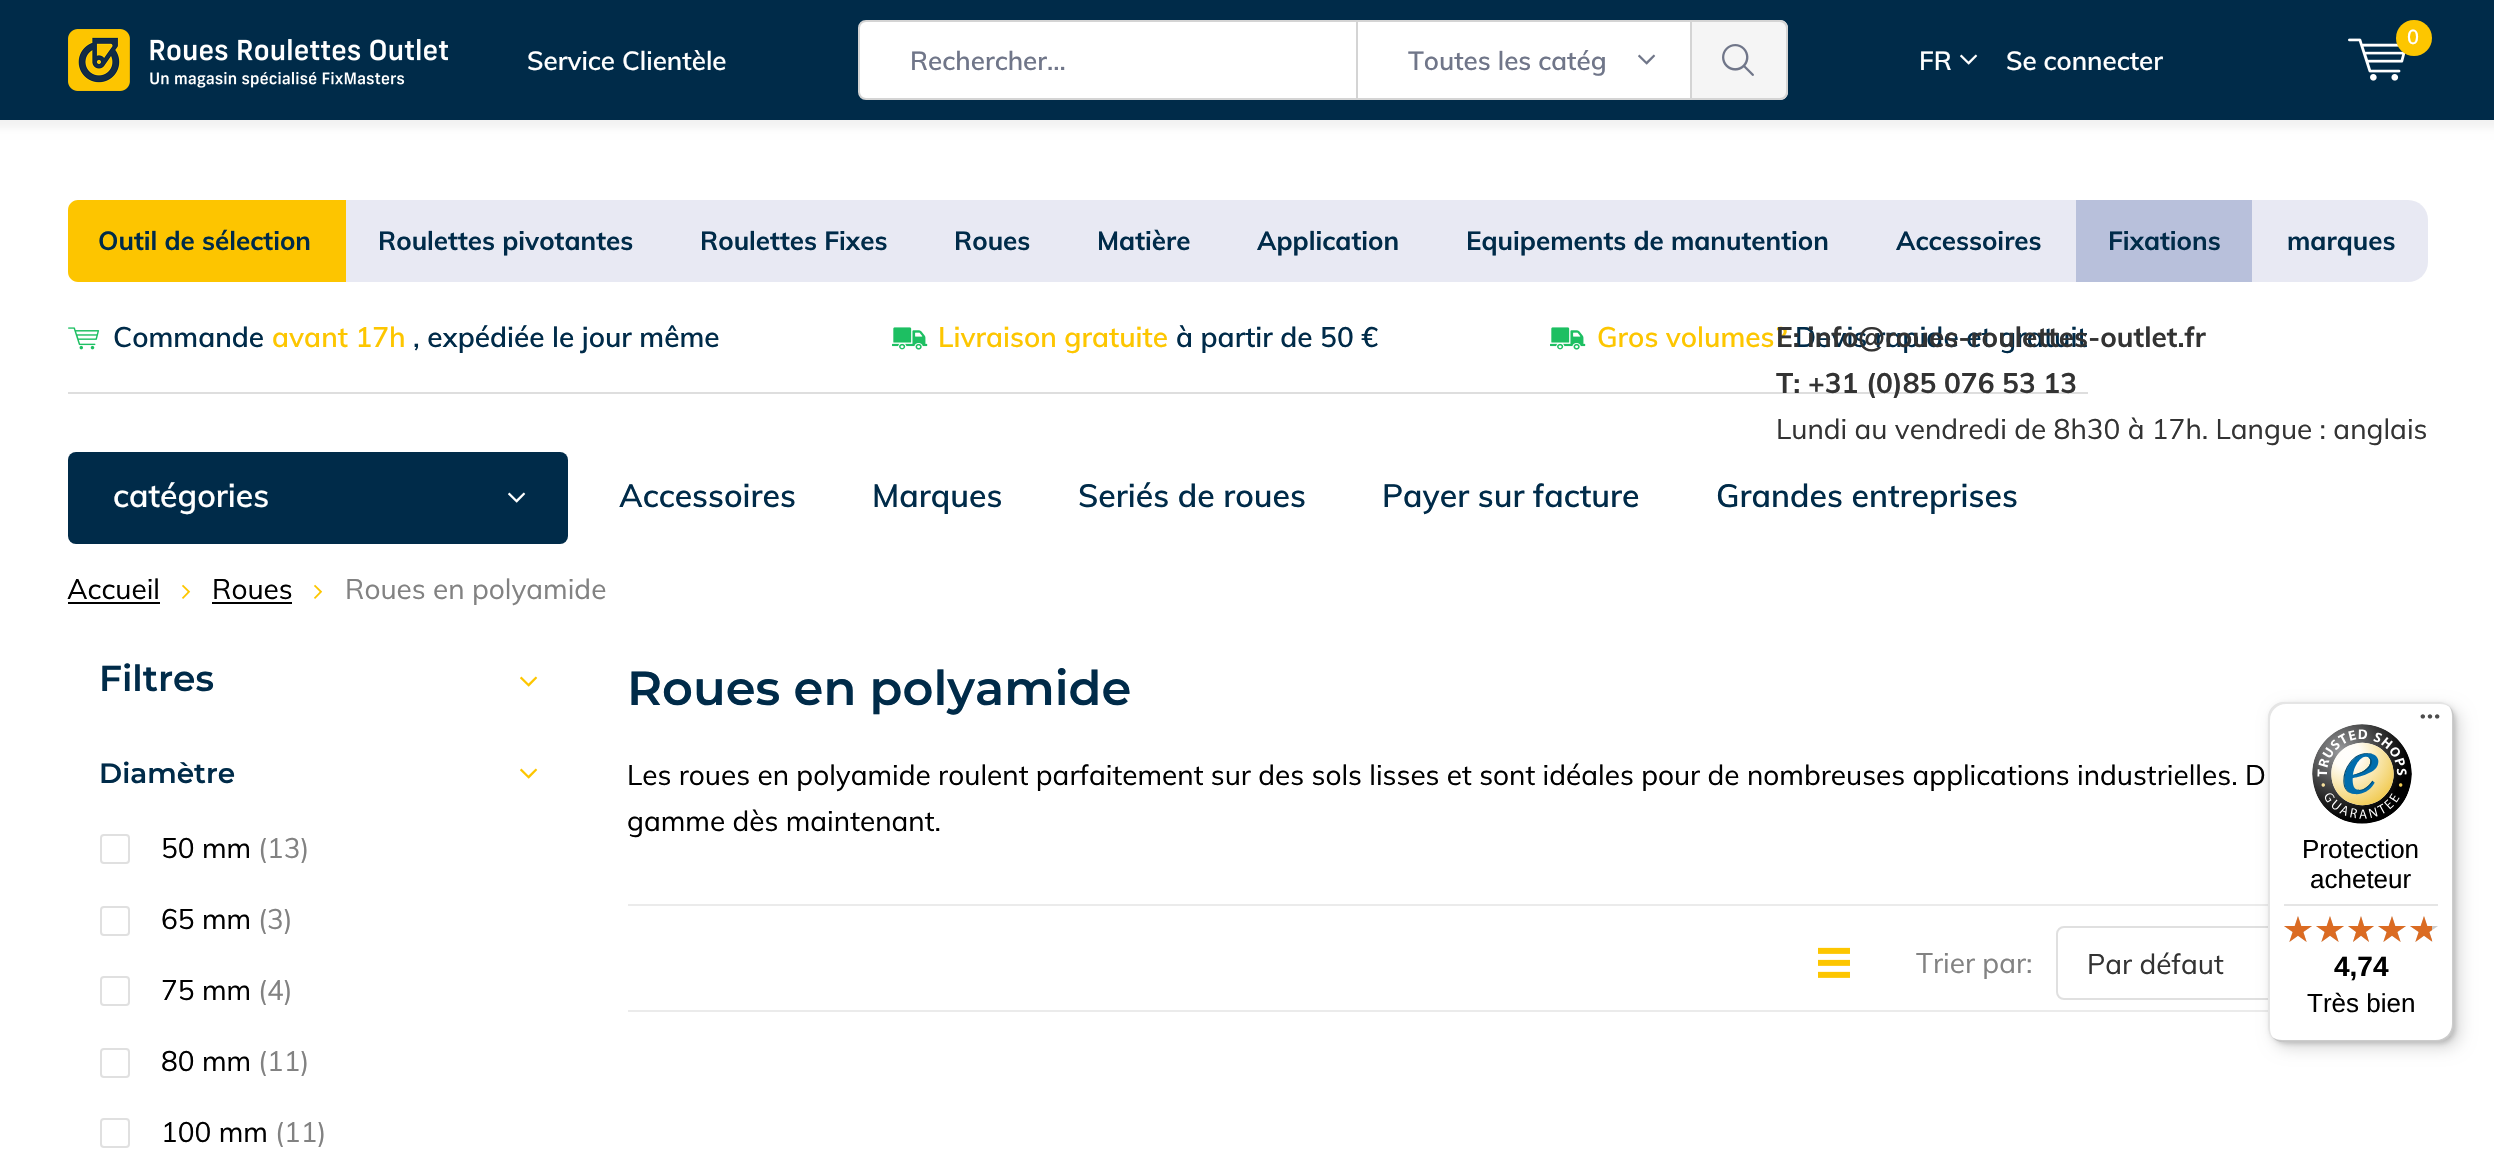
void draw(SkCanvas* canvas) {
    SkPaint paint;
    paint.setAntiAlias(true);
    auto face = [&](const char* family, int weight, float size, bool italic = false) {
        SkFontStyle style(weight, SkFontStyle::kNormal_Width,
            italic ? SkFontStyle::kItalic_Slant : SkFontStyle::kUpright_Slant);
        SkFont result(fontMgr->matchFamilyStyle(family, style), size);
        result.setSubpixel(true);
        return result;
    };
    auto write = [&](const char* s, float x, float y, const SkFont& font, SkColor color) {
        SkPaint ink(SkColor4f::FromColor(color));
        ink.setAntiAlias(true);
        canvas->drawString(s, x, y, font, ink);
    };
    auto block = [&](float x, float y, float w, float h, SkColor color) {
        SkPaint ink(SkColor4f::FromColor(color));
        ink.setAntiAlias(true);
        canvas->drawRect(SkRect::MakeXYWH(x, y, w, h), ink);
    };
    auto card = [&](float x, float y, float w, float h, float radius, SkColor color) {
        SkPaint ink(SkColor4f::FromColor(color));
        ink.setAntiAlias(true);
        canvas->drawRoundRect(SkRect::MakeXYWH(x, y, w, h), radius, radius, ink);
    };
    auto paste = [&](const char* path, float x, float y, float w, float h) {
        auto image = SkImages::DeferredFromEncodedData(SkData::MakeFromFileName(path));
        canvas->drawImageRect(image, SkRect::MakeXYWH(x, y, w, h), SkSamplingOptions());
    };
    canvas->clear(SK_ColorWHITE);
    paint.setColor(SkColorSetARGB(13, 0, 0, 0));
    paint.setMaskFilter(SkMaskFilter::MakeBlur(kNormal_SkBlurStyle, 4));
    canvas->drawRect(SkRect::MakeXYWH(-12, 8, 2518, 120), paint);
    paint.setMaskFilter(nullptr);
    block(0, 0, 2494, 120, SkColorSetRGB(0, 43, 73));
    paste("pic1.png", 68, 29, 380, 62);
    auto kFont1 = face("Muli", 600, 26);
    write("Service Clientèle", 527, 70, kFont1, SK_ColorWHITE);
    paint.setColor(SK_ColorWHITE);
    canvas->drawRect(SkRect::MakeXYWH(1357, 21, 334, 78), paint);
    paint.setStyle(SkPaint::kStroke_Style);
    paint.setStrokeWidth(2);
    paint.setColor(SkColorSetRGB(212, 212, 212));
    canvas->drawRect(SkRect::MakeXYWH(1357, 21, 334, 78), paint);
    paint.setStyle(SkPaint::kFill_Style);
    paint.setColor(SK_ColorWHITE);
    canvas->drawPath(SkPathBuilder().moveTo(866, 21).lineTo(1357, 21).lineTo(1357, 99).lineTo(866, 99).cubicTo(862, 99, 859, 96, 859, 92).lineTo(859, 28).cubicTo(859, 24, 862, 21, 866, 21).close().detach(), paint);
    paint.setStyle(SkPaint::kStroke_Style);
    paint.setColor(SkColorSetRGB(212, 212, 212));
    canvas->drawPath(SkPathBuilder().moveTo(866, 21).lineTo(1357, 21).lineTo(1357, 99).lineTo(866, 99).cubicTo(862, 99, 859, 96, 859, 92).lineTo(859, 28).cubicTo(859, 24, 862, 21, 866, 21).close().detach(), paint);
    write("Rechercher...", 910, 70, kFont1, SkColorSetRGB(112, 118, 137));
    write("Toutes les catég", 1408, 70, kFont1, SkColorSetRGB(112, 118, 137));
    paste("pic2.png", 1638, 54, 18, 11);
    paint.setStyle(SkPaint::kFill_Style);
    paint.setColor(SkColorSetRGB(245, 245, 245));
    canvas->drawPath(SkPathBuilder().moveTo(1692, 20).lineTo(1780, 20).cubicTo(1784.5f, 20, 1788, 23.5f, 1788, 28).lineTo(1788, 92).cubicTo(1788, 96.5f, 1784.5f, 100, 1780, 100).lineTo(1692, 100).close().detach(), paint);
    paint.setColor(SkColorSetRGB(212, 212, 212));
    canvas->drawPath(SkPathBuilder(SkPathFillType::kEvenOdd).moveTo(1692, 20).lineTo(1780, 20).cubicTo(1784, 20, 1788, 24, 1788, 28).lineTo(1788, 92).cubicTo(1788, 96, 1784, 100, 1780, 100).lineTo(1692, 100).close().moveTo(1692, 22).lineTo(1780, 22).cubicTo(1783, 22, 1786, 25, 1786, 28).lineTo(1786, 92).cubicTo(1786, 95, 1783, 98, 1780, 98).lineTo(1692, 98).close().detach(), paint);
    paste("pic3.png", 1722, 44, 32, 32);
    paste("pic4.png", 2348, 38, 58, 43);
    paint.setColor(SkColorSetRGB(253, 198, 0));
    canvas->drawCircle(2414, 38, 18, paint);
    auto kFont2 = face("Muli", 600, 20);
    write("0", 2407, 44, kFont2, SK_ColorWHITE);
    write("FR", 1919, 70, kFont1, SK_ColorWHITE);
    paste("pic5.png", 1960, 54, 18, 11);
    write("Se connecter", 2006, 70, kFont1, SK_ColorWHITE);
    card(68, 200, 2360, 82, 20, SkColorSetRGB(232, 233, 243));
    paint.setColor(SkColorSetRGB(253, 197, 0));
    canvas->drawPath(SkPathBuilder().moveTo(78, 200).lineTo(346, 200).lineTo(346, 282).lineTo(78, 282).cubicTo(72.5f, 282, 68, 277.5f, 68, 272).lineTo(68, 210).cubicTo(68, 204.5f, 72.5f, 200, 78, 200).close().detach(), paint);
    auto kFont3 = face("Muli", 700, 26);
    write("Outil de sélection", 98, 250, kFont3, SkColorSetRGB(0, 43, 73));
    write("Roulettes pivotantes", 378, 250, kFont3, SkColorSetRGB(0, 43, 73));
    write("Roulettes Fixes", 700, 250, kFont3, SkColorSetRGB(0, 43, 73));
    write("Roues", 954, 250, kFont3, SkColorSetRGB(0, 43, 73));
    write("Matière", 1097, 250, kFont3, SkColorSetRGB(0, 43, 73));
    write("Application", 1257, 250, kFont3, SkColorSetRGB(0, 43, 73));
    write("Equipements de manutention", 1466, 250, kFont3, SkColorSetRGB(0, 43, 73));
    write("Accessoires", 1896, 250, kFont3, SkColorSetRGB(0, 43, 73));
    block(2076, 200, 176, 82, SkColorSetRGB(184, 192, 219));
    write("Fixations", 2108, 250, kFont3, SkColorSetRGB(0, 43, 73));
    write("marques", 2287, 250, kFont3, SkColorSetRGB(0, 43, 73));
    block(68, 392, 2020, 2, SkColorSetRGB(222, 222, 222));
    paste("pic6.png", 68, 327, 32, 23);
    auto kFont4 = face("Muli", 600, 28);
    write("Commande", 113, 347, kFont4, SkColorSetRGB(0, 43, 73));
    write("avant 17h", 272, 347, kFont4, SkColorSetRGB(253, 198, 0));
    write(", expédiée le jour même", 413, 347, kFont4, SkColorSetRGB(0, 43, 73));
    paste("pic7.png", 892, 327, 36, 23);
    write("Livraison gratuite", 938, 347, kFont4, SkColorSetRGB(253, 198, 0));
    write("à partir de 50 €", 1176, 347, kFont4, SkColorSetRGB(0, 43, 73));
    paste("pic7.png", 1550, 327, 36, 23);
    write("Gros volumes?", 1597, 347, kFont4, SkColorSetRGB(253, 198, 0));
    write("Devis rapide et gratuit", 1795, 347, kFont4, SkColorSetRGB(0, 43, 73));
    auto kFont5 = face("Muli", 700, 28);
    write("E: info@roues-roulettes-outlet.fr", 1776, 347, kFont5, SkColorSetRGB(51, 51, 51));
    write("T: +31 (0)85 076 53 13", 1776, 393, kFont5, SkColorSetRGB(51, 51, 51));
    auto kFont6 = face("Muli", 400, 28);
    write("Lundi au vendredi de 8h30 à 17h. Langue : anglais", 1776, 439, kFont6, SkColorSetRGB(51, 51, 51));
    card(68, 452, 500, 92, 8, SkColorSetRGB(0, 43, 73));
    auto kFont7 = face("Muli", 600, 32);
    write("catégories", 113, 507, kFont7, SK_ColorWHITE);
    paste("pic5.png", 508, 492, 18, 11);
    write("Accessoires", 619, 507, kFont7, SkColorSetRGB(0, 43, 73));
    write("Marques", 872, 507, kFont7, SkColorSetRGB(0, 43, 73));
    write("Seriés de roues", 1078, 507, kFont7, SkColorSetRGB(0, 43, 73));
    write("Payer sur facture", 1382, 507, kFont7, SkColorSetRGB(0, 43, 73));
    write("Grandes entreprises", 1716, 507, kFont7, SkColorSetRGB(0, 43, 73));
    write("Accueil", 67, 599, kFont6, SK_ColorBLACK);
    block(68, 602, 92, 2, SK_ColorBLACK);
    paste("pic8.png", 182, 584, 9, 15);
    write("Roues", 212, 599, kFont6, SK_ColorBLACK);
    block(212, 602, 80, 2, SK_ColorBLACK);
    paste("pic8.png", 314, 584, 9, 15);
    write("Roues en polyamide", 345, 599, kFont6, SkColorSetRGB(130, 130, 130));
    auto kFont8 = face("Montserrat", 600, 36);
    write("Filtres", 99, 691, kFont8, SkColorSetRGB(0, 43, 73));
    paste("pic9.png", 520, 676, 18, 11);
    auto kFont9 = face("Montserrat", 600, 28);
    write("Diamètre", 99, 783, kFont9, SkColorSetRGB(0, 43, 73));
    paste("pic9.png", 520, 768, 18, 11);
    paint.setStyle(SkPaint::kStroke_Style);
    paint.setColor(SkColorSetRGB(224, 224, 224));
    canvas->drawRoundRect(SkRect::MakeXYWH(101, 835, 28, 28), 3, 3, paint);
    write("50 mm", 161, 858, kFont6, SK_ColorBLACK);
    write("(13)", 258, 858, kFont6, SkColorSetRGB(130, 130, 130));
    canvas->drawRoundRect(SkRect::MakeXYWH(101, 907, 28, 28), 3, 3, paint);
    write("65 mm", 161, 929, kFont6, SK_ColorBLACK);
    write("(3)", 258, 929, kFont6, SkColorSetRGB(130, 130, 130));
    canvas->drawRoundRect(SkRect::MakeXYWH(101, 977, 28, 28), 3, 3, paint);
    write("75 mm", 161, 1000, kFont6, SK_ColorBLACK);
    write("(4)", 258, 1000, kFont6, SkColorSetRGB(130, 130, 130));
    canvas->drawRoundRect(SkRect::MakeXYWH(101, 1049, 28, 28), 3, 3, paint);
    write("80 mm", 161, 1071, kFont6, SK_ColorBLACK);
    write("(11)", 258, 1071, kFont6, SkColorSetRGB(130, 130, 130));
    canvas->drawRoundRect(SkRect::MakeXYWH(101, 1119, 28, 28), 3, 3, paint);
    write("100 mm", 161, 1142, kFont6, SK_ColorBLACK);
    write("(11)", 275, 1142, kFont6, SkColorSetRGB(130, 130, 130));
    auto kFont10 = face("Montserrat", 600, 48);
    write("Roues en polyamide", 627, 705, kFont10, SkColorSetRGB(0, 43, 73));
    write("Les roues en polyamide roulent parfaitement sur des sols lisses et sont idéales pour de nombreuses applications industrielles. D", 627, 785, kFont6, SK_ColorBLACK);
    write("gamme dès maintenant.", 627, 831, kFont6, SK_ColorBLACK);
    block(628, 904, 1640, 2, SkColorSetRGB(235, 235, 235));
    block(628, 1010, 1640, 2, SkColorSetRGB(235, 235, 235));
    paste("pic10.png", 1818, 947, 32, 31);
    write("Trier par:", 1916, 973, kFont6, SkColorSetRGB(130, 130, 130));
    canvas->drawRoundRect(SkRect::MakeXYWH(2057, 927, 370, 72), 7, 7, paint);
    write("Par défaut", 2087, 974, kFont6, SkColorSetRGB(51, 51, 51));
    paint.setStyle(SkPaint::kFill_Style);
    paint.setColor(SkColorSetARGB(38, 0, 0, 0));
    paint.setMaskFilter(SkMaskFilter::MakeBlur(kNormal_SkBlurStyle, 8));
    canvas->drawRoundRect(SkRect::MakeXYWH(2274, 708, 186, 340), 16, 16, paint);
    paint.setMaskFilter(nullptr);
    paint.setMaskFilter(SkMaskFilter::MakeBlur(kNormal_SkBlurStyle, 2));
    canvas->drawRoundRect(SkRect::MakeXYWH(2270, 704, 186, 340), 16, 16, paint);
    paint.setMaskFilter(nullptr);
    card(2268, 702, 186, 340, 16, SK_ColorWHITE);
    paint.setColor(SkColorSetARGB(26, 0, 0, 0));
    canvas->drawPath(SkPathBuilder().moveTo(2286, 704).lineTo(2440, 704).cubicTo(2444, 704, 2447, 705, 2450, 707).cubicTo(2447, 704, 2443, 702, 2438, 702).lineTo(2284, 702).cubicTo(2275, 702, 2268, 709, 2268, 718).lineTo(2268, 1026).cubicTo(2268, 1031, 2270, 1035, 2273, 1038).cubicTo(2271, 1035, 2270, 1032, 2270, 1028).lineTo(2270, 720).cubicTo(2270, 711, 2277, 704, 2286, 704).close().detach(), paint);
    paint.setColor(SkColorSetARGB(51, 0, 0, 0));
    canvas->drawPath(SkPathBuilder().moveTo(2272, 1037).cubicTo(2275, 1040, 2279, 1042, 2284, 1042).lineTo(2438, 1042).cubicTo(2447, 1042, 2454, 1035, 2454, 1026).lineTo(2454, 718).cubicTo(2454, 713, 2452, 709, 2449, 706).cubicTo(2451, 709, 2452, 712, 2452, 716).lineTo(2452, 1024).cubicTo(2452, 1033, 2445, 1040, 2436, 1040).lineTo(2282, 1040).cubicTo(2278, 1040, 2275, 1039, 2272, 1037).close().detach(), paint);
    paint.setColor(SkColorSetARGB(51, 50, 50, 50));
    canvas->drawPath(SkPathBuilder().moveTo(2273, 1037).cubicTo(2276, 1040, 2280, 1042, 2284, 1042).lineTo(2438, 1042).cubicTo(2447, 1042, 2454, 1035, 2454, 1026).lineTo(2454, 718).cubicTo(2454, 714, 2452, 710, 2449, 707).cubicTo(2452, 710, 2453, 713, 2453, 717).lineTo(2453, 1025).cubicTo(2453, 1034, 2446, 1041, 2437, 1041).lineTo(2283, 1041).cubicTo(2279, 1041, 2276, 1040, 2273, 1037).close().detach(), paint);
    paint.setColor(SkColorSetARGB(77, 255, 255, 255));
    canvas->drawPath(SkPathBuilder().moveTo(2273, 1037).cubicTo(2276, 1040, 2280, 1042, 2284, 1042).lineTo(2438, 1042).cubicTo(2447, 1042, 2454, 1035, 2454, 1026).lineTo(2454, 718).cubicTo(2454, 714, 2452, 710, 2449, 707).cubicTo(2452, 710, 2453, 713, 2453, 717).lineTo(2453, 1025).cubicTo(2453, 1034, 2446, 1041, 2437, 1041).lineTo(2283, 1041).cubicTo(2279, 1041, 2276, 1040, 2273, 1037).close().detach(), paint);
    paste("pic11.png", 2420, 714, 20, 5);
    paste("pic12.png", 2312, 724, 100, 100);
    auto kFont11 = face("Liberation Sans", 400, 26);
    write("Protection", 2302, 858, kFont11, SK_ColorBLACK);
    write("acheteur", 2310, 888, kFont11, SK_ColorBLACK);
    block(2284, 904, 154, 2, SkColorSetRGB(229, 229, 229));
    paste("pic13.png", 2284, 916, 28, 26);
    paste("pic13.png", 2316, 916, 28, 26);
    paste("pic14.png", 2348, 916, 26, 26);
    paste("pic13.png", 2378, 916, 28, 26);
    paste("pic13.png", 2410, 916, 28, 26);
    paste("pic15.png", 2284, 916, 28, 26);
    paste("pic15.png", 2316, 916, 28, 26);
    paste("pic16.png", 2348, 916, 26, 26);
    paste("pic15.png", 2378, 916, 28, 26);
    paste("pic17.png", 2410, 916, 22, 26);
    auto kFont12 = face("Liberation Sans", 700, 28);
    write("4,74", 2334, 976, kFont12, SK_ColorBLACK);
    write("Très bien", 2307, 1012, kFont11, SK_ColorBLACK);
}
